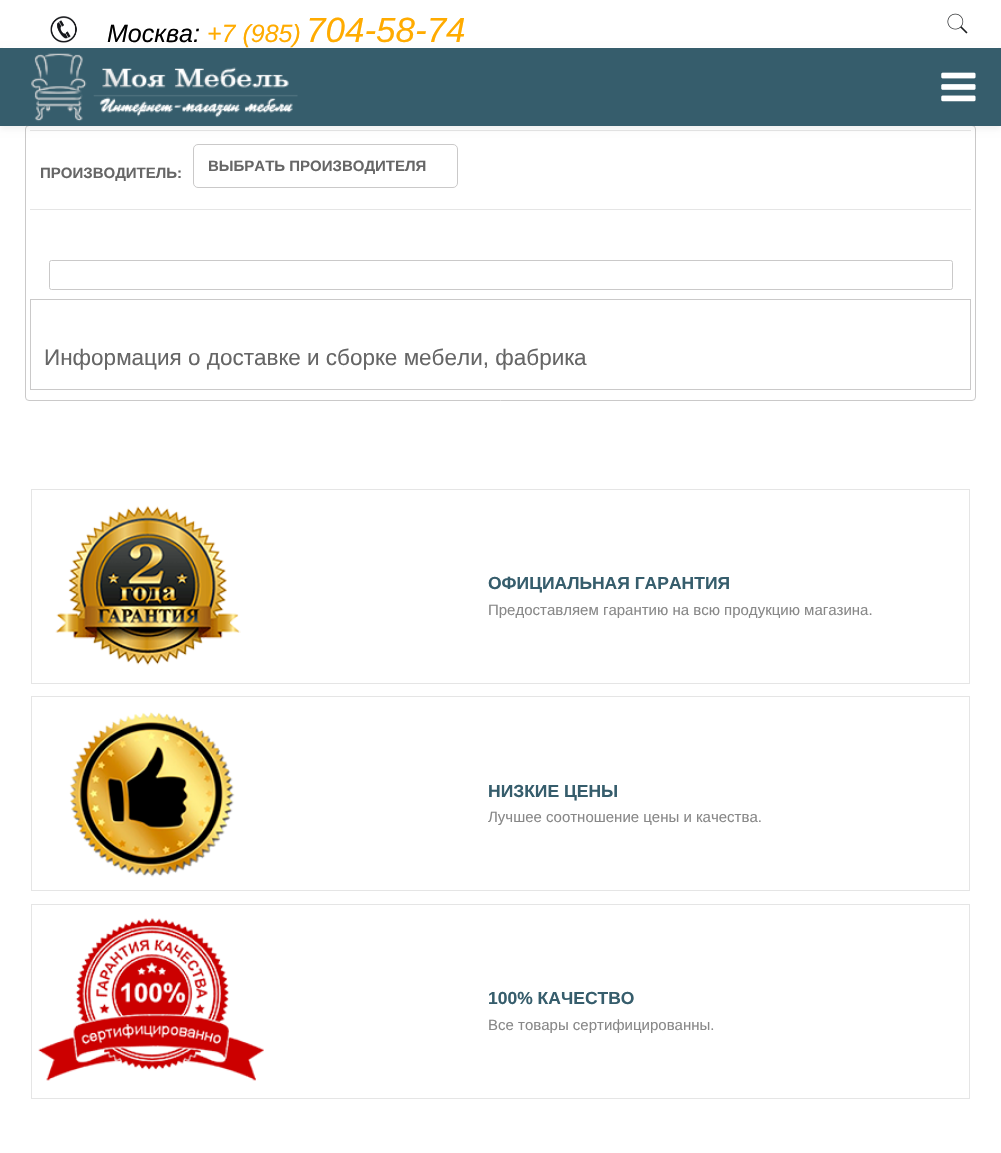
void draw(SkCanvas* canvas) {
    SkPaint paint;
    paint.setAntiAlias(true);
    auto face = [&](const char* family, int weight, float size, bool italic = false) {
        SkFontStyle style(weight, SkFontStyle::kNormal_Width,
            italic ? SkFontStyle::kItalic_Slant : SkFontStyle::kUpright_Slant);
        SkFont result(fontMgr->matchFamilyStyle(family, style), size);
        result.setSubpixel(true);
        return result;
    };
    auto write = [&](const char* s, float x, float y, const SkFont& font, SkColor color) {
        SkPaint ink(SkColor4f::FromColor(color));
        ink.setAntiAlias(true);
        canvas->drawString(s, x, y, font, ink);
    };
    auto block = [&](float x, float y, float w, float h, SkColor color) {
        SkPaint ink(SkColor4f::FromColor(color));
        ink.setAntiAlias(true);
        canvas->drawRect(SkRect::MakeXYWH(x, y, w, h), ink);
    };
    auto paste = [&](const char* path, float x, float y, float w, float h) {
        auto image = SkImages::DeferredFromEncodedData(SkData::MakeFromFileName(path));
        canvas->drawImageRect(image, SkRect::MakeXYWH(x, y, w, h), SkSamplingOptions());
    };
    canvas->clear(SK_ColorWHITE);
    paint.setStyle(SkPaint::kStroke_Style);
    paint.setStrokeWidth(1);
    paint.setColor(SkColorSetRGB(202, 201, 201));
    canvas->drawRoundRect(SkRect::MakeXYWH(25.5f, 125.5f, 950, 275), 3.5f, 3.5f, paint);
    block(30, 130, 941, 1, SkColorSetRGB(229, 229, 229));
    paint.setStyle(SkPaint::kFill_Style);
    paint.setColor(SkColorSetARGB(15, 0, 0, 0));
    paint.setMaskFilter(SkMaskFilter::MakeBlur(kNormal_SkBlurStyle, 3));
    canvas->drawRect(SkRect::MakeXYWH(0, 50, 1001, 79), paint);
    paint.setMaskFilter(nullptr);
    block(3, 47, 995, 1, SK_ColorWHITE);
    paste("pic1.png", 50, 16, 27, 27);
    auto kFont1 = face("Liberation Sans", 400, 25, true);
    write("Москва:", 107, 42, kFont1, SK_ColorBLACK);
    write("+7 (985)", 207, 42, kFont1, SkColorSetRGB(255, 171, 0));
    auto kFont2 = face("Liberation Sans", 400, 35, true);
    write("704-58-74", 306, 42, kFont2, SkColorSetRGB(255, 171, 0));
    paste("pic2.png", 947, 13, 21, 21);
    block(0, 48, 1001, 78, SkColorSetRGB(54, 93, 108));
    paste("pic3.png", 25, 53, 273, 73);
    paste("pic4.png", 941, 72, 35, 30);
    block(30, 209, 941, 1, SkColorSetRGB(229, 229, 229));
    auto kFont3 = face("Liberation Sans", 700, 15);
    write("ПРОИЗВОДИТЕЛЬ:", 40, 178, kFont3, SkColorSetRGB(102, 102, 102));
    paint.setStyle(SkPaint::kStroke_Style);
    paint.setColor(SkColorSetRGB(202, 201, 201));
    canvas->drawRoundRect(SkRect::MakeXYWH(193.5f, 144.5f, 264, 43), 4.5f, 4.5f, paint);
    write("ВЫБРАТЬ ПРОИЗВОДИТЕЛЯ", 208, 171, kFont3, SkColorSetRGB(102, 102, 102));
    canvas->drawRoundRect(SkRect::MakeXYWH(49.5f, 260.5f, 903, 29), 2, 2, paint);
    canvas->drawRect(SkRect::MakeXYWH(30.5f, 299.5f, 940, 90), paint);
    auto kFont4 = face("Liberation Sans", 400, 22.5f);
    write("Информация о доставке и сборке мебели, фабрика", 44, 365, kFont4, SkColorSetRGB(102, 102, 102));
    paint.setColor(SkColorSetRGB(229, 229, 229));
    canvas->drawRect(SkRect::MakeXYWH(31.5f, 489.5f, 938, 194), paint);
    paste("pic5.png", 55, 505, 186, 161);
    auto kFont5 = face("Liberation Sans", 700, 17.5f);
    write("ОФИЦИАЛЬНАЯ ГАРАНТИЯ", 488, 589, kFont5, SkColorSetRGB(54, 93, 108));
    auto kFont6 = face("Liberation Sans", 400, 15);
    write("Предоставляем гарантию на всю продукцию магазина.", 488, 615, kFont6, SkColorSetRGB(136, 136, 136));
    canvas->drawRect(SkRect::MakeXYWH(31.5f, 696.5f, 938, 194), paint);
    paste("pic6.png", 69, 712, 166, 165);
    write("НИЗКИЕ ЦЕНЫ", 488, 797, kFont5, SkColorSetRGB(54, 93, 108));
    write("Лучшее соотношение цены и качества.", 488, 822, kFont6, SkColorSetRGB(136, 136, 136));
    canvas->drawRect(SkRect::MakeXYWH(31.5f, 904.5f, 938, 194), paint);
    paste("pic7.png", 38, 918, 226, 163);
    write("100% КАЧЕСТВО", 488, 1004, kFont5, SkColorSetRGB(54, 93, 108));
    write("Все товары сертифицированны.", 488, 1030, kFont6, SkColorSetRGB(136, 136, 136));
}
